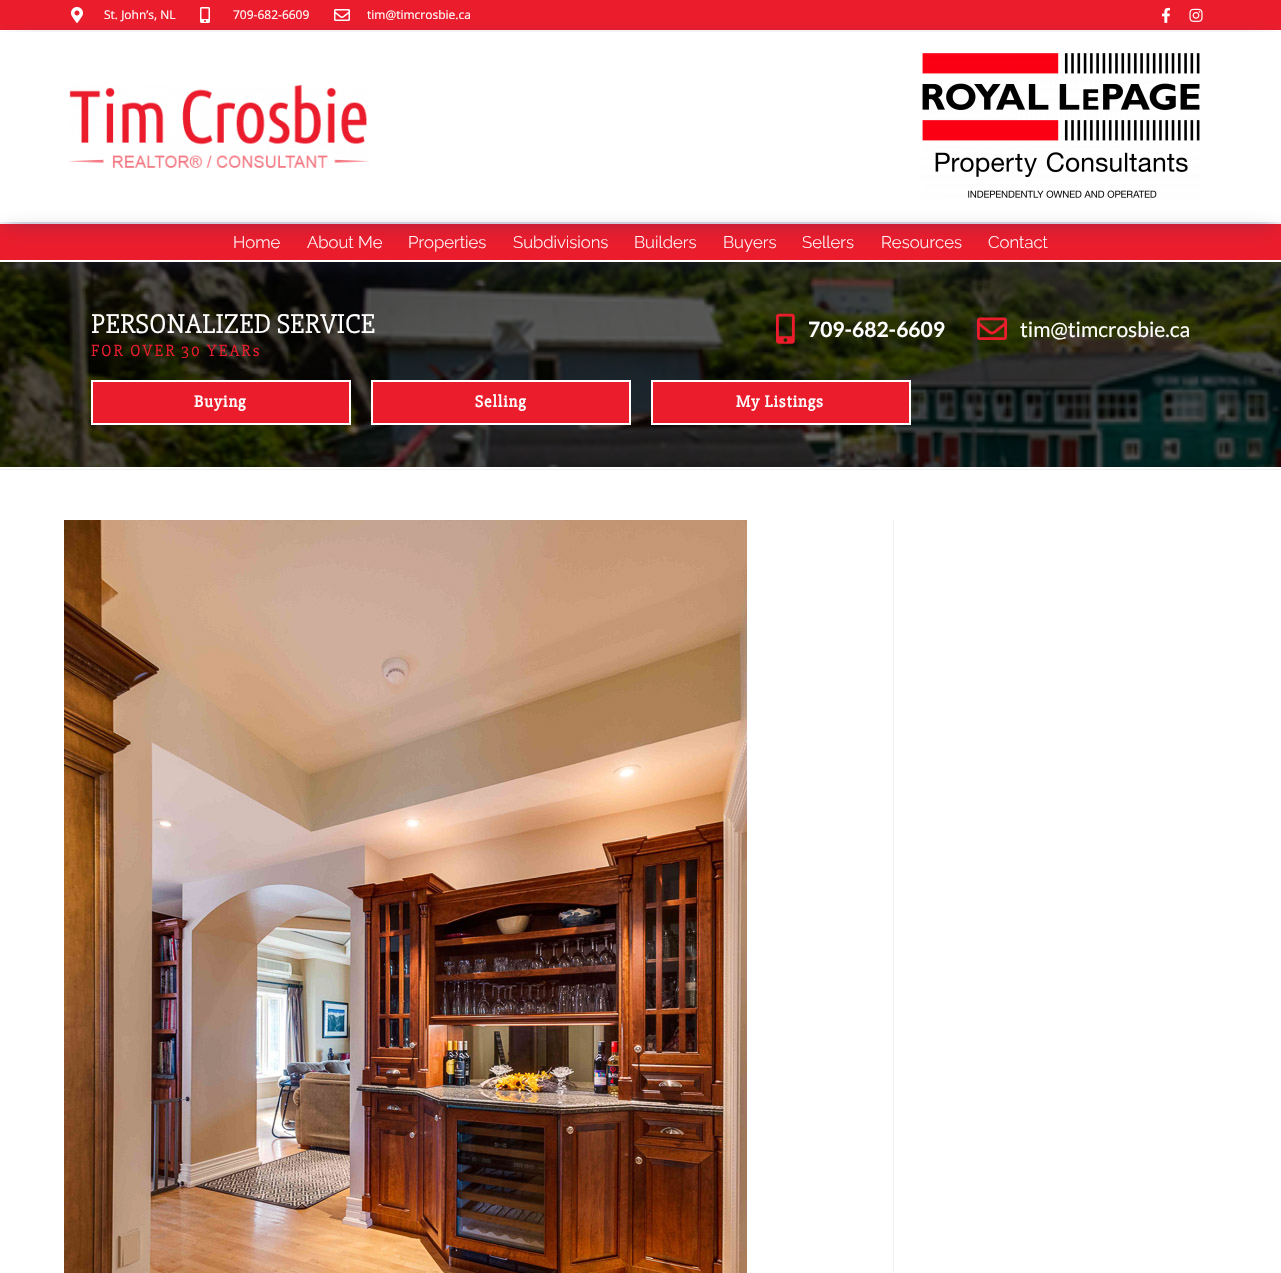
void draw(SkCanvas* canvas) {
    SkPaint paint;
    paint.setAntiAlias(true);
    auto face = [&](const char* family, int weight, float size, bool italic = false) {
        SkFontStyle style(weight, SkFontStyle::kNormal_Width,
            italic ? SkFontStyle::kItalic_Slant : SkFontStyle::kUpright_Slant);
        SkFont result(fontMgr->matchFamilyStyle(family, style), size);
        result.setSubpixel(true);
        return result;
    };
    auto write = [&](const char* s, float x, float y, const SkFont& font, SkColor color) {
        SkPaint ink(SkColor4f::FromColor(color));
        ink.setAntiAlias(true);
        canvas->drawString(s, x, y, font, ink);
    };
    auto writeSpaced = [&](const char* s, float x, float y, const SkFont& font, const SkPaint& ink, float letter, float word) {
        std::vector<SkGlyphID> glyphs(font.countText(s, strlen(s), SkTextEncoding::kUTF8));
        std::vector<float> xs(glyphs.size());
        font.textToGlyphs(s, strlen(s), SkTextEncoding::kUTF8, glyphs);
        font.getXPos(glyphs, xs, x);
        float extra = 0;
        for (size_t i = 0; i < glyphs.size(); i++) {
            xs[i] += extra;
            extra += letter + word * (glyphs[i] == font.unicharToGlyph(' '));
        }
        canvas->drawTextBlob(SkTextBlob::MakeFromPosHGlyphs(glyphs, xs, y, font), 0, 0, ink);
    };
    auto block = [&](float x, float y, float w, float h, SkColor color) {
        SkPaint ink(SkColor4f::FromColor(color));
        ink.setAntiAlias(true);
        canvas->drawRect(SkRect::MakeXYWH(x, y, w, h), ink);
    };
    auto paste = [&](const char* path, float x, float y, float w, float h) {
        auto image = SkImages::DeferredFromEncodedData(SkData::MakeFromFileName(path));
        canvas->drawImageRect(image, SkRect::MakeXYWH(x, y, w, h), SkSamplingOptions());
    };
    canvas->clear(SK_ColorWHITE);
    block(0, 469, 1281, 1, SkColorSetRGB(241, 241, 241));
    block(0, 0, 1281, 30, SkColorSetRGB(235, 28, 44));
    paste("pic1.png", 71, 7, 12, 16);
    auto kFont1 = face("Open Sans", 400, 12);
    write("St. John’s, NL", 104, 19, kFont1, SK_ColorWHITE);
    paste("pic2.png", 200, 7, 10, 16);
    write("709-682-6609", 233, 19, kFont1, SK_ColorWHITE);
    paste("pic3.png", 334, 9, 16, 12);
    write("tim@timcrosbie.ca", 367, 19, kFont1, SK_ColorWHITE);
    paste("pic4.png", 1162, 7, 8, 16);
    paste("pic5.png", 1189, 8, 14, 14);
    paste("pic8.png", 0, 262, 1281, 205);
    paint.setColor(SkColorSetARGB(97, 51, 51, 104));
    paint.setMaskFilter(SkMaskFilter::MakeBlur(kNormal_SkBlurStyle, 10.5f));
    canvas->drawRect(SkRect::MakeXYWH(5, 233, 1271, 30), paint);
    paint.setMaskFilter(nullptr);
    block(0, 224, 1281, 36, SkColorSetRGB(235, 28, 44));
    canvas->save();
    canvas->clipPath(SkPathBuilder(SkPathFillType::kEvenOdd).moveTo(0, 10).lineTo(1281, 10).lineTo(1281, 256).lineTo(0, 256).close().moveTo(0, 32).lineTo(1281, 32).lineTo(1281, 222).lineTo(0, 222).close().detach(), true);
    paint.setMaskFilter(SkMaskFilter::MakeBlur(kNormal_SkBlurStyle, 10.5f));
    canvas->drawRect(SkRect::MakeXYWH(5, 43, 1271, 180), paint);
    paint.setMaskFilter(nullptr);
    canvas->restore();
    paste("pic6.png", 69, 84, 300, 84);
    paste("pic7.png", 922, 53, 278, 145);
    block(0, 260, 1281, 2, SK_ColorWHITE);
    auto kFont2 = face("Raleway", 300, 16.75f);
    write("Home", 233, 248, kFont2, SK_ColorWHITE);
    write("About Me", 307, 248, kFont2, SK_ColorWHITE);
    write("Properties", 408, 248, kFont2, SK_ColorWHITE);
    write("Subdivisions", 513, 248, kFont2, SK_ColorWHITE);
    write("Builders", 634, 248, kFont2, SK_ColorWHITE);
    write("Buyers", 723, 248, kFont2, SK_ColorWHITE);
    write("Sellers", 802, 248, kFont2, SK_ColorWHITE);
    write("Resources", 881, 248, kFont2, SK_ColorWHITE);
    write("Contact", 988, 248, kFont2, SK_ColorWHITE);
    auto kFont3 = face("Slabo 27px", 400, 28);
    write("PERSONALIZED SERVICE", 91, 333, kFont3, SK_ColorWHITE);
    auto kFont4 = face("Slabo 27px", 400, 16.75f);
    paint.setColor(SkColorSetRGB(235, 28, 44));
    writeSpaced("FOR OVER 30 YEARs", 91, 356, kFont4, paint, 2, 0);
    paste("pic9.png", 776, 313, 19, 31);
    auto kFont5 = face("Lato", 700, 21);
    write("709-682-6609", 808, 337, kFont5, SK_ColorWHITE);
    paste("pic10.png", 977, 317, 30, 23);
    auto kFont6 = face("Lato", 400, 21);
    write("tim@timcrosbie.ca", 1020, 337, kFont6, SK_ColorWHITE);
    canvas->drawRect(SkRect::MakeXYWH(92, 381, 258, 43), paint);
    paint.setStyle(SkPaint::kStroke_Style);
    paint.setStrokeWidth(2);
    paint.setColor(SK_ColorWHITE);
    canvas->drawRect(SkRect::MakeXYWH(92, 381, 258, 43), paint);
    auto kFont7 = face("Slabo 27px", 700, 16.75f);
    paint.setStyle(SkPaint::kFill_Style);
    writeSpaced("Buying", 194, 407, kFont7, paint, 1, 0);
    paint.setColor(SkColorSetRGB(235, 28, 44));
    canvas->drawRect(SkRect::MakeXYWH(372, 381, 258, 43), paint);
    paint.setStyle(SkPaint::kStroke_Style);
    paint.setColor(SK_ColorWHITE);
    canvas->drawRect(SkRect::MakeXYWH(372, 381, 258, 43), paint);
    paint.setStyle(SkPaint::kFill_Style);
    writeSpaced("Selling", 475, 407, kFont7, paint, 1, 0);
    paint.setColor(SkColorSetRGB(235, 28, 44));
    canvas->drawRect(SkRect::MakeXYWH(652, 381, 258, 43), paint);
    paint.setStyle(SkPaint::kStroke_Style);
    paint.setColor(SK_ColorWHITE);
    canvas->drawRect(SkRect::MakeXYWH(652, 381, 258, 43), paint);
    paint.setStyle(SkPaint::kFill_Style);
    writeSpaced("My Listings", 736, 407, kFont7, paint, 1, 0);
    block(893, 520, 1, 753, SkColorSetRGB(241, 241, 241));
    paste("pic11.png", 64, 520, 683, 753);
}
